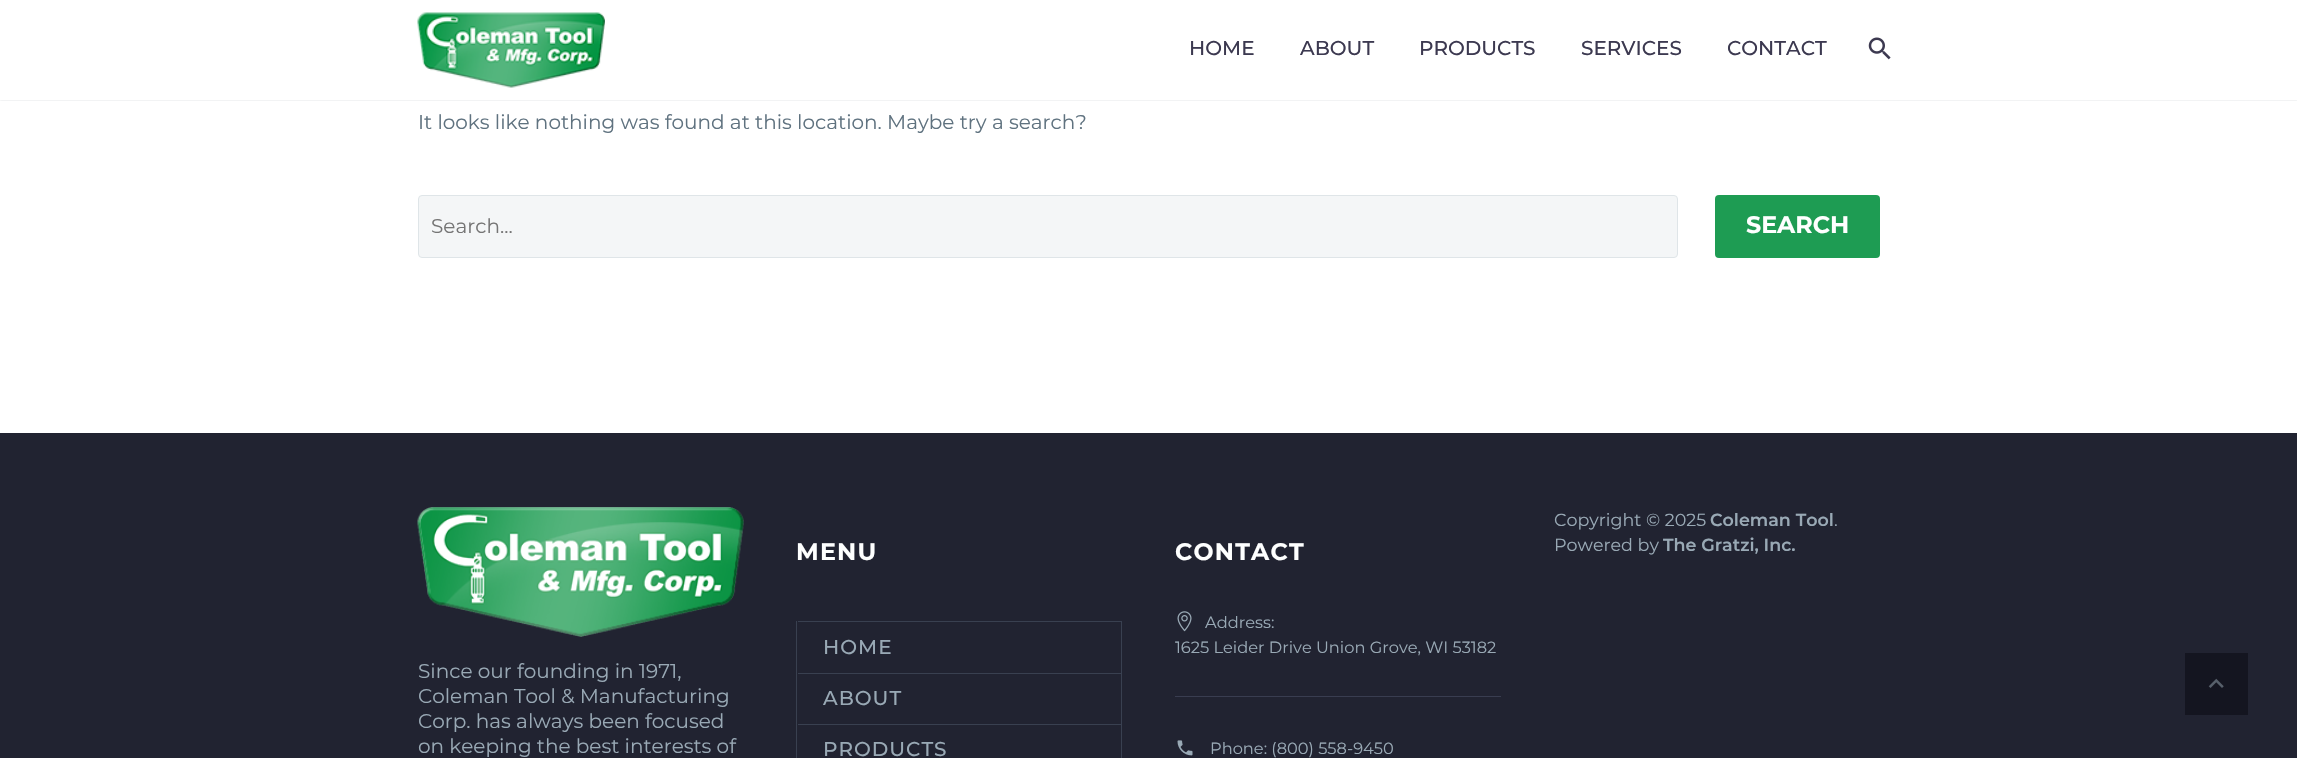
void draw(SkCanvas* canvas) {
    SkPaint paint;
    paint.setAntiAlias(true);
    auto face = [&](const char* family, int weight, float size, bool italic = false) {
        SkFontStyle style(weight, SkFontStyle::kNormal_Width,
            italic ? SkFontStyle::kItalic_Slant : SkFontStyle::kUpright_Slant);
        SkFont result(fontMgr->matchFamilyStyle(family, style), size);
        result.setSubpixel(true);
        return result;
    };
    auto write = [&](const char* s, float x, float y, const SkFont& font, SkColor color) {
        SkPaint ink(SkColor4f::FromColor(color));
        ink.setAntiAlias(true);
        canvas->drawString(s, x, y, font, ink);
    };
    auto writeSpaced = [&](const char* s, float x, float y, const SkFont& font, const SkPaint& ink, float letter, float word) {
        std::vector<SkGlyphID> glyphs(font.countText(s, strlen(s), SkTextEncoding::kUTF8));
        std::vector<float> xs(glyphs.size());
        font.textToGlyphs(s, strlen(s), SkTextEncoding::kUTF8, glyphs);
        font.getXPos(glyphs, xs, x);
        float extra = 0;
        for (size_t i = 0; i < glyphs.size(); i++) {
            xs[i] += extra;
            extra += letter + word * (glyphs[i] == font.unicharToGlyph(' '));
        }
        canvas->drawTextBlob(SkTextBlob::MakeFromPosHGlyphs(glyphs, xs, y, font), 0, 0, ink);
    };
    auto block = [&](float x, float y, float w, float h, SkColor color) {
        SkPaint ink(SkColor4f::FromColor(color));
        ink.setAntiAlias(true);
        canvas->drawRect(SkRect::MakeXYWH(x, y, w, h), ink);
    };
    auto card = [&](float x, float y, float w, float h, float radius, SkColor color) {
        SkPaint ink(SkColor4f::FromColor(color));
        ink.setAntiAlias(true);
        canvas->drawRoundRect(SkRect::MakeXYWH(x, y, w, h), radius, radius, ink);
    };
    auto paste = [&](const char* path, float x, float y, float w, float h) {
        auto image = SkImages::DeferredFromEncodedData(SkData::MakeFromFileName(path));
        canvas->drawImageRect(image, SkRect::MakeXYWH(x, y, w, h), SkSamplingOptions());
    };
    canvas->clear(SkColorSetRGB(33, 35, 49));
    block(0, 0, 2297, 433, SK_ColorWHITE);
    canvas->save();
    canvas->clipRect(SkRect::MakeXYWH(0, 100, 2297, 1));
    paint.setColor(SkColorSetARGB(51, 56, 69, 84));
    paint.setMaskFilter(SkMaskFilter::MakeBlur(kNormal_SkBlurStyle, 1));
    canvas->drawRect(SkRect::MakeXYWH(0, 0, 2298, 100), paint);
    paint.setMaskFilter(nullptr);
    canvas->restore();
    paste("pic1.png", 417, 12, 188, 76);
    auto kFont1 = face("Montserrat", 500, 20);
    write("HOME", 1189, 55, kFont1, SkColorSetRGB(60, 57, 80));
    write("ABOUT", 1300, 55, kFont1, SkColorSetRGB(60, 57, 80));
    write("PRODUCTS", 1419, 55, kFont1, SkColorSetRGB(60, 57, 80));
    write("SERVICES", 1581, 55, kFont1, SkColorSetRGB(60, 57, 80));
    write("CONTACT", 1727, 55, kFont1, SkColorSetRGB(60, 57, 80));
    paste("pic2.png", 1868, 37, 23, 23);
    auto kFont2 = face("Montserrat", 400, 20);
    write("It looks like nothing was found at this location. Maybe try a search?", 418, 129, kFont2, SkColorSetRGB(95, 114, 127));
    paint.setColor(SkColorSetRGB(244, 246, 247));
    canvas->drawRoundRect(SkRect::MakeXYWH(418.5f, 195.5f, 1259, 62), 3.5f, 3.5f, paint);
    paint.setStyle(SkPaint::kStroke_Style);
    paint.setStrokeWidth(1);
    paint.setColor(SkColorSetRGB(223, 229, 232));
    canvas->drawRoundRect(SkRect::MakeXYWH(418.5f, 195.5f, 1259, 62), 3.5f, 3.5f, paint);
    write("Search...", 431, 233, kFont2, SkColorSetRGB(117, 117, 117));
    card(1715, 195, 165, 63, 4, SkColorSetRGB(30, 156, 83));
    auto kFont3 = face("Montserrat", 700, 23.75f);
    write("SEARCH", 1746, 233, kFont3, SkColorSetRGB(254, 255, 255));
    auto kFont4 = face("Montserrat", 400, 17.5f);
    write("Copyright © 2025", 1554, 526, kFont4, SkColorSetRGB(153, 169, 181));
    auto kFont5 = face("Montserrat", 600, 17.5f);
    write("Coleman Tool", 1710, 526, kFont5, SkColorSetRGB(153, 169, 181));
    write(".", 1834, 526, kFont4, SkColorSetRGB(153, 169, 181));
    write("Powered by", 1554, 551, kFont4, SkColorSetRGB(153, 169, 181));
    write("The Gratzi, Inc.", 1663, 551, kFont5, SkColorSetRGB(153, 169, 181));
    paste("pic3.png", 417, 507, 327, 130);
    write("Since our founding in 1971,", 418, 678, kFont2, SkColorSetRGB(153, 169, 181));
    write("Coleman Tool & Manufacturing", 418, 703, kFont2, SkColorSetRGB(153, 169, 181));
    write("Corp. has always been focused", 418, 728, kFont2, SkColorSetRGB(153, 169, 181));
    write("on keeping the best interests of", 418, 753, kFont2, SkColorSetRGB(153, 169, 181));
    paint.setStyle(SkPaint::kFill_Style);
    paint.setColor(SkColorSetRGB(254, 255, 255));
    writeSpaced("MENU", 796, 560, kFont3, paint, 1.25f, 0);
    block(1121, 621, 1, 137, SkColorSetRGB(57, 64, 80));
    block(796, 621, 1, 137, SkColorSetRGB(57, 64, 80));
    block(798, 621, 323, 1, SkColorSetRGB(57, 64, 80));
    paint.setColor(SkColorSetRGB(153, 169, 181));
    writeSpaced("HOME", 823, 654, kFont1, paint, 1, 0);
    block(798, 673, 323, 1, SkColorSetRGB(57, 64, 80));
    writeSpaced("ABOUT", 823, 705, kFont1, paint, 1, 0);
    block(798, 724, 323, 1, SkColorSetRGB(57, 64, 80));
    writeSpaced("PRODUCTS", 823, 756, kFont1, paint, 1, 0);
    paint.setColor(SkColorSetRGB(254, 255, 255));
    writeSpaced("CONTACT", 1175, 560, kFont3, paint, 1.25f, 0);
    block(1175, 696, 326, 1, SkColorSetRGB(57, 61, 80));
    paste("pic4.png", 1177, 611, 15, 21);
    auto kFont6 = face("Montserrat", 400, 16.25f);
    write("Address:", 1205, 628, kFont6, SkColorSetRGB(153, 169, 181));
    write("1625 Leider Drive Union Grove, WI 53182", 1175, 653, kFont6, SkColorSetRGB(153, 169, 181));
    paste("pic5.png", 1177, 740, 16, 16);
    write("Phone: (800) 558-9450", 1210, 754, kFont6, SkColorSetRGB(153, 169, 181));
    block(2185, 653, 63, 62, SkColorSetRGB(20, 21, 32));
    paste("pic6.png", 2208, 678, 16, 10);
}
